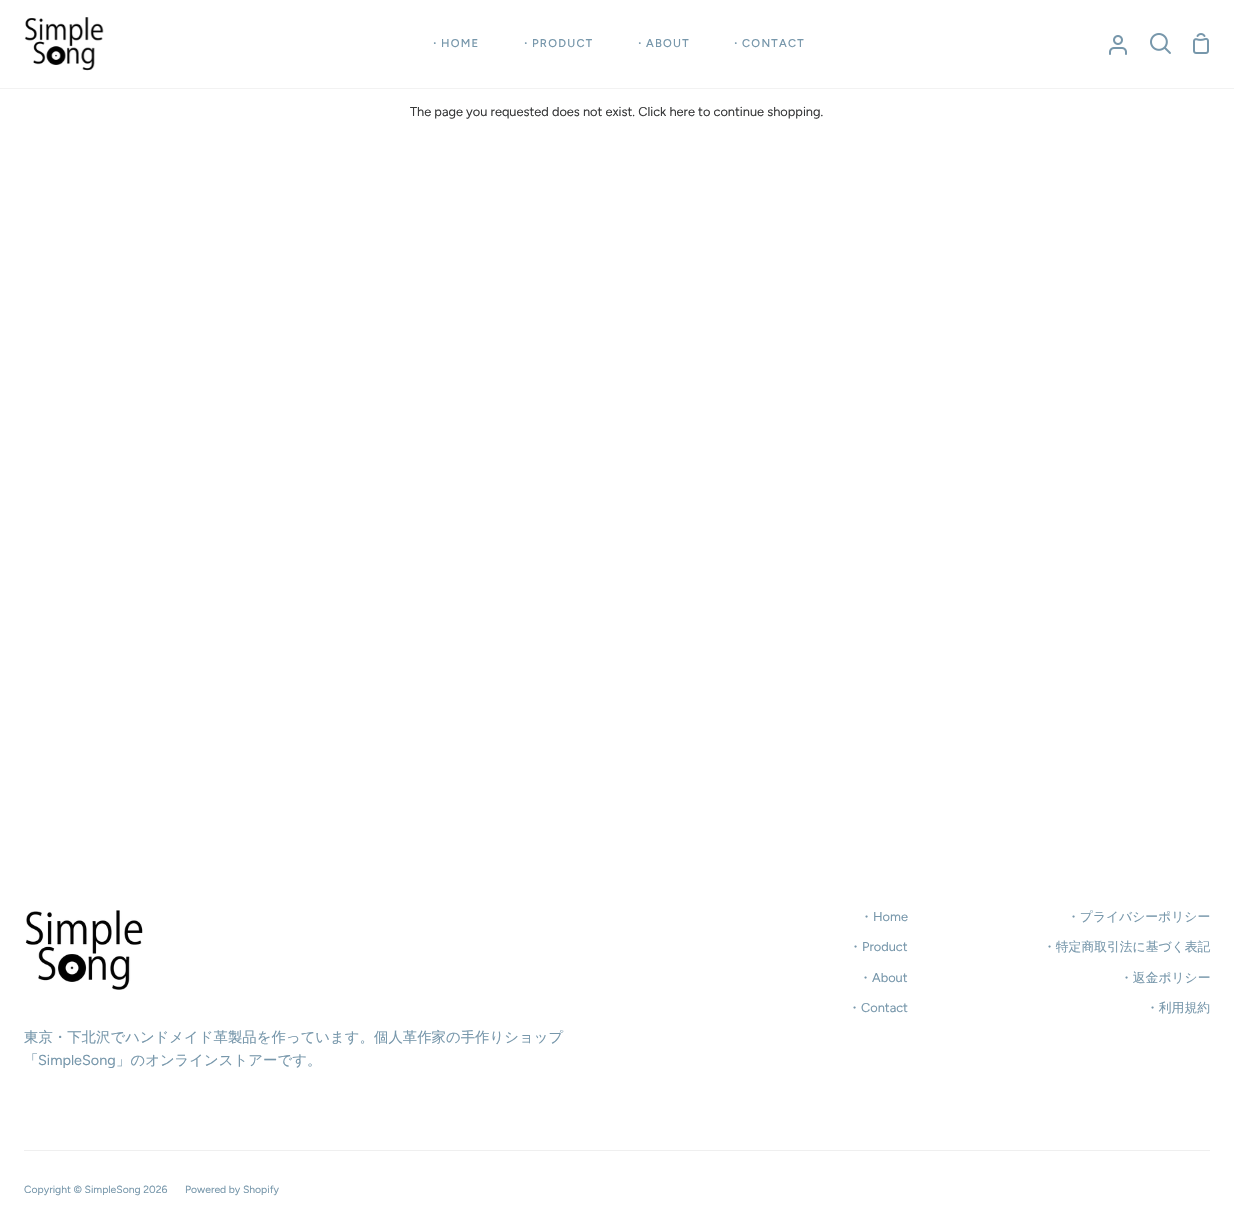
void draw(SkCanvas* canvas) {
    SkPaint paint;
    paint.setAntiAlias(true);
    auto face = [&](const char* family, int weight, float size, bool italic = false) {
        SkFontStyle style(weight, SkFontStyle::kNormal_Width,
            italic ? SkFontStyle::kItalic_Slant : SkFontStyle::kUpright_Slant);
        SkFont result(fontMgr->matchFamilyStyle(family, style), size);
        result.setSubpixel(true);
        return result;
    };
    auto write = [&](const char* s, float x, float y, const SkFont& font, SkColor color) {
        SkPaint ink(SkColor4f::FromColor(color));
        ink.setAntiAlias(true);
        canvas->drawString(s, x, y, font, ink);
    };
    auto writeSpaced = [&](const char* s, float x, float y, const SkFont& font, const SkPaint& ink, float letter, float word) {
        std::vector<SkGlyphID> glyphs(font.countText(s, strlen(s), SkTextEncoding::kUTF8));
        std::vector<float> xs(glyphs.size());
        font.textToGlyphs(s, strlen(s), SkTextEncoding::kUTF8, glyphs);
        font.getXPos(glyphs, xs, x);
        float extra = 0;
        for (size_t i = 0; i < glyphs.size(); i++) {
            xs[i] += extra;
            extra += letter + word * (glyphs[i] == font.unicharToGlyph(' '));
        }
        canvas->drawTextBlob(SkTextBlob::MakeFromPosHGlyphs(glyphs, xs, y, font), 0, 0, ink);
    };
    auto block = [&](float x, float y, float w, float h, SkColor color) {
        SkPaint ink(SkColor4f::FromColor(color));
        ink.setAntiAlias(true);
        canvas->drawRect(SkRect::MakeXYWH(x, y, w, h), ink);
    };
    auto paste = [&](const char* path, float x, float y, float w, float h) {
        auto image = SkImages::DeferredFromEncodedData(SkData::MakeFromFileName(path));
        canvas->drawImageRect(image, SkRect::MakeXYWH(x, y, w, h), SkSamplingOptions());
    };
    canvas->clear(SK_ColorWHITE);
    block(0, 88, 1234, 1, SkColorSetRGB(242, 242, 242));
    paste("pic1.png", 24, 17, 80, 54);
    auto kFont1 = face("WenQuanYi Zen Hei", 500, 11.25f);
    paint.setColor(SkColorSetRGB(119, 151, 171));
    writeSpaced("・", 429, 47, kFont1, paint, 1.25f, 0);
    auto kFont2 = face("Figtree", 500, 11.25f);
    writeSpaced("HOME", 441, 47, kFont2, paint, 1.25f, 0);
    writeSpaced("・", 520, 47, kFont1, paint, 1.25f, 0);
    writeSpaced("PRODUCT", 532, 47, kFont2, paint, 1.25f, 0);
    writeSpaced("・", 634, 47, kFont1, paint, 1.25f, 0);
    writeSpaced("ABOUT", 646, 47, kFont2, paint, 1.25f, 0);
    writeSpaced("・", 730, 47, kFont1, paint, 1.25f, 0);
    writeSpaced("CONTACT", 742, 47, kFont2, paint, 1.25f, 0);
    paste("pic2.png", 1109, 35, 18, 20);
    paste("pic3.png", 1150, 33, 21, 21);
    paste("pic4.png", 1193, 33, 16, 21);
    auto kFont3 = face("Figtree", 400, 12.8f);
    write("The page you requested does not exist. Click here to continue shopping.", 410, 116, kFont3, SkColorSetRGB(55, 56, 57));
    auto kFont4 = face("WenQuanYi Zen Hei", 500, 12.8f);
    write("・", 860, 921, kFont4, SkColorSetRGB(119, 151, 171));
    write("Home", 873, 921, kFont3, SkColorSetRGB(119, 151, 171));
    write("・", 849, 951, kFont4, SkColorSetRGB(119, 151, 171));
    write("Product", 862, 951, kFont3, SkColorSetRGB(119, 151, 171));
    write("・", 859, 982, kFont4, SkColorSetRGB(119, 151, 171));
    write("About", 872, 982, kFont3, SkColorSetRGB(119, 151, 171));
    write("・", 848, 1012, kFont4, SkColorSetRGB(119, 151, 171));
    write("Contact", 861, 1012, kFont3, SkColorSetRGB(119, 151, 171));
    write("・プライバシーポリシー", 1067, 921, kFont4, SkColorSetRGB(119, 151, 171));
    write("・特定商取引法に基づく表記", 1043, 951, kFont4, SkColorSetRGB(119, 151, 171));
    write("・返金ポリシー", 1120, 982, kFont4, SkColorSetRGB(119, 151, 171));
    write("・利用規約", 1146, 1012, kFont4, SkColorSetRGB(119, 151, 171));
    paste("pic5.png", 25, 910, 118, 80);
    auto kFont5 = face("WenQuanYi Zen Hei", 500, 14.4f);
    write("東京・下北沢でハンドメイド革製品を作っています。個人革作家の手作りショップ", 24, 1042, kFont5, SkColorSetRGB(119, 151, 171));
    write("「", 24, 1065, kFont5, SkColorSetRGB(119, 151, 171));
    auto kFont6 = face("Figtree", 400, 14.4f);
    write("SimpleSong", 38, 1065, kFont6, SkColorSetRGB(119, 151, 171));
    write("」のオンラインストアーです。", 116, 1065, kFont5, SkColorSetRGB(119, 151, 171));
    block(24, 1150, 1186, 1, SkColorSetRGB(239, 239, 239));
    auto kFont7 = face("Figtree", 400, 10.4f);
    write("Copyright © SimpleSong 2026", 24, 1193, kFont7, SkColorSetRGB(119, 151, 171));
    write("Powered by Shopify", 185, 1193, kFont7, SkColorSetRGB(119, 151, 171));
}
